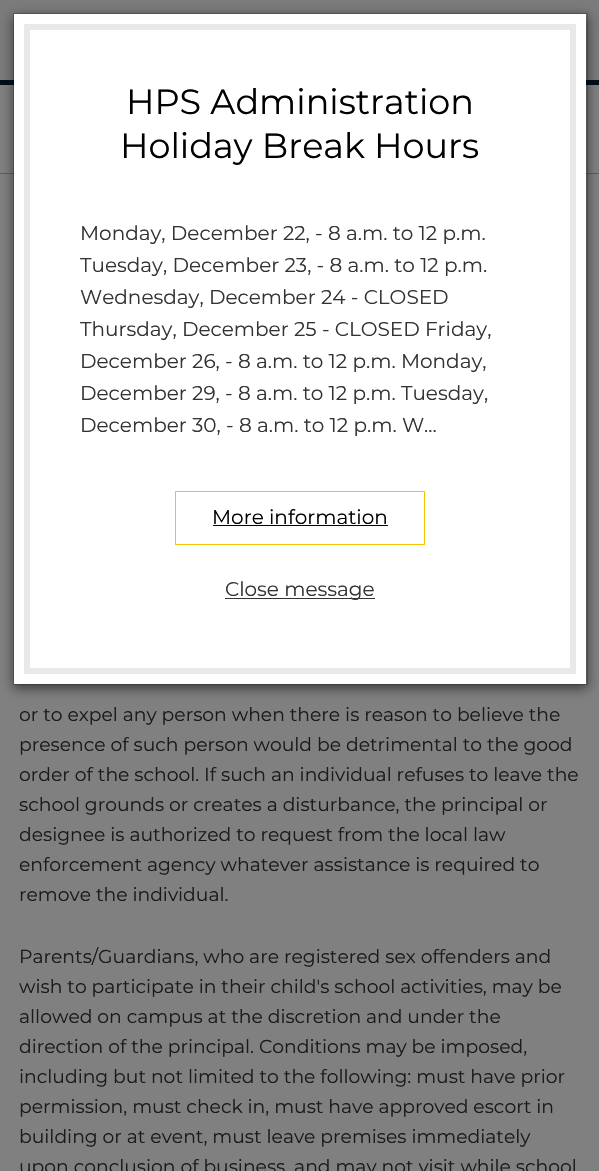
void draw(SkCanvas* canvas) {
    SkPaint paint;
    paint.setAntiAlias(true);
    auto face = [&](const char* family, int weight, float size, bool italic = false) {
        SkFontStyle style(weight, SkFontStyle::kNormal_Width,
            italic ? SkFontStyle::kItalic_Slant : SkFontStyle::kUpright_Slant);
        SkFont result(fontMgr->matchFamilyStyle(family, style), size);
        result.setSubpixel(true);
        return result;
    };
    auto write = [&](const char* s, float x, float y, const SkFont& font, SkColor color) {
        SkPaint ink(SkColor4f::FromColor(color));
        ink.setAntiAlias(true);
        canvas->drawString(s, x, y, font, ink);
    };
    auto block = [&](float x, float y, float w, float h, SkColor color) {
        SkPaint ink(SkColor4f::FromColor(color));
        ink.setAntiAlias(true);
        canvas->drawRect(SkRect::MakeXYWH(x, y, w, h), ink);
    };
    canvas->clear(SkColorSetRGB(128, 128, 128));
    block(0, 80, 599, 5, SkColorSetRGB(0, 14, 25));
    block(0, 173, 599, 1, SkColorSetRGB(125, 97, 0));
    block(0, 0, 599, 80, SkColorSetRGB(123, 123, 123));
    paint.setColor(SkColorSetARGB(128, 0, 0, 0));
    paint.setMaskFilter(SkMaskFilter::MakeBlur(kNormal_SkBlurStyle, 5.5f));
    canvas->drawRect(SkRect::MakeXYWH(13, 16, 575, 673), paint);
    paint.setMaskFilter(nullptr);
    block(14, 14, 572, 670, SK_ColorWHITE);
    paint.setStyle(SkPaint::kStroke_Style);
    paint.setStrokeWidth(1);
    paint.setColor(SkColorSetARGB(51, 0, 0, 0));
    canvas->drawRect(SkRect::MakeXYWH(13.5f, 13.5f, 574, 671), paint);
    paint.setStrokeWidth(6);
    paint.setColor(SkColorSetRGB(234, 232, 232));
    canvas->drawRect(SkRect::MakeXYWH(27, 27, 546, 644), paint);
    auto kFont1 = face("Montserrat", 400, 35);
    write("HPS Administration", 126, 114, kFont1, SK_ColorBLACK);
    write("Holiday Break Hours", 120, 158, kFont1, SK_ColorBLACK);
    auto kFont2 = face("Montserrat", 400, 20);
    write("Monday, December 22, - 8 a.m. to 12 p.m.", 80, 240, kFont2, SkColorSetRGB(51, 51, 51));
    write("Tuesday, December 23, - 8 a.m. to 12 p.m.", 80, 272, kFont2, SkColorSetRGB(51, 51, 51));
    write("Wednesday, December 24 - CLOSED", 80, 304, kFont2, SkColorSetRGB(51, 51, 51));
    write("Thursday, December 25 - CLOSED Friday,", 80, 336, kFont2, SkColorSetRGB(51, 51, 51));
    write("December 26, - 8 a.m. to 12 p.m. Monday,", 80, 368, kFont2, SkColorSetRGB(51, 51, 51));
    write("December 29, - 8 a.m. to 12 p.m. Tuesday,", 80, 400, kFont2, SkColorSetRGB(51, 51, 51));
    write("December 30, - 8 a.m. to 12 p.m. W...", 80, 432, kFont2, SkColorSetRGB(51, 51, 51));
    paint.setStrokeWidth(1);
    paint.setColor(SkColorSetRGB(249, 194, 0));
    canvas->drawRect(SkRect::MakeXYWH(175.5f, 491.5f, 249, 53), paint);
    write("More information", 212, 524, kFont2, SK_ColorBLACK);
    block(213, 525, 175, 1, SK_ColorBLACK);
    block(225, 598, 150, 1, SkColorSetRGB(51, 51, 51));
    write("Close message", 225, 596, kFont2, SkColorSetRGB(51, 51, 51));
    auto kFont3 = face("Montserrat", 400, 18.75f);
    write("or to expel any person when there is reason to believe the", 19, 721, kFont3, SkColorSetRGB(26, 26, 26));
    write("presence of such person would be detrimental to the good", 19, 751, kFont3, SkColorSetRGB(26, 26, 26));
    write("order of the school. If such an individual refuses to leave the", 19, 781, kFont3, SkColorSetRGB(26, 26, 26));
    write("school grounds or creates a disturbance, the principal or", 19, 811, kFont3, SkColorSetRGB(26, 26, 26));
    write("designee is authorized to request from the local law", 19, 841, kFont3, SkColorSetRGB(26, 26, 26));
    write("enforcement agency whatever assistance is required to", 19, 871, kFont3, SkColorSetRGB(26, 26, 26));
    write("remove the individual.", 19, 901, kFont3, SkColorSetRGB(26, 26, 26));
    write("Parents/Guardians, who are registered sex offenders and", 19, 963, kFont3, SkColorSetRGB(26, 26, 26));
    write("wish to participate in their child's school activities, may be", 19, 993, kFont3, SkColorSetRGB(26, 26, 26));
    write("allowed on campus at the discretion and under the", 19, 1023, kFont3, SkColorSetRGB(26, 26, 26));
    write("direction of the principal. Conditions may be imposed,", 19, 1053, kFont3, SkColorSetRGB(26, 26, 26));
    write("including but not limited to the following: must have prior", 19, 1083, kFont3, SkColorSetRGB(26, 26, 26));
    write("permission, must check in, must have approved escort in", 19, 1113, kFont3, SkColorSetRGB(26, 26, 26));
    write("building or at event, must leave premises immediately", 19, 1143, kFont3, SkColorSetRGB(26, 26, 26));
    write("upon conclusion of business, and may not visit while school", 19, 1173, kFont3, SkColorSetRGB(26, 26, 26));
}
